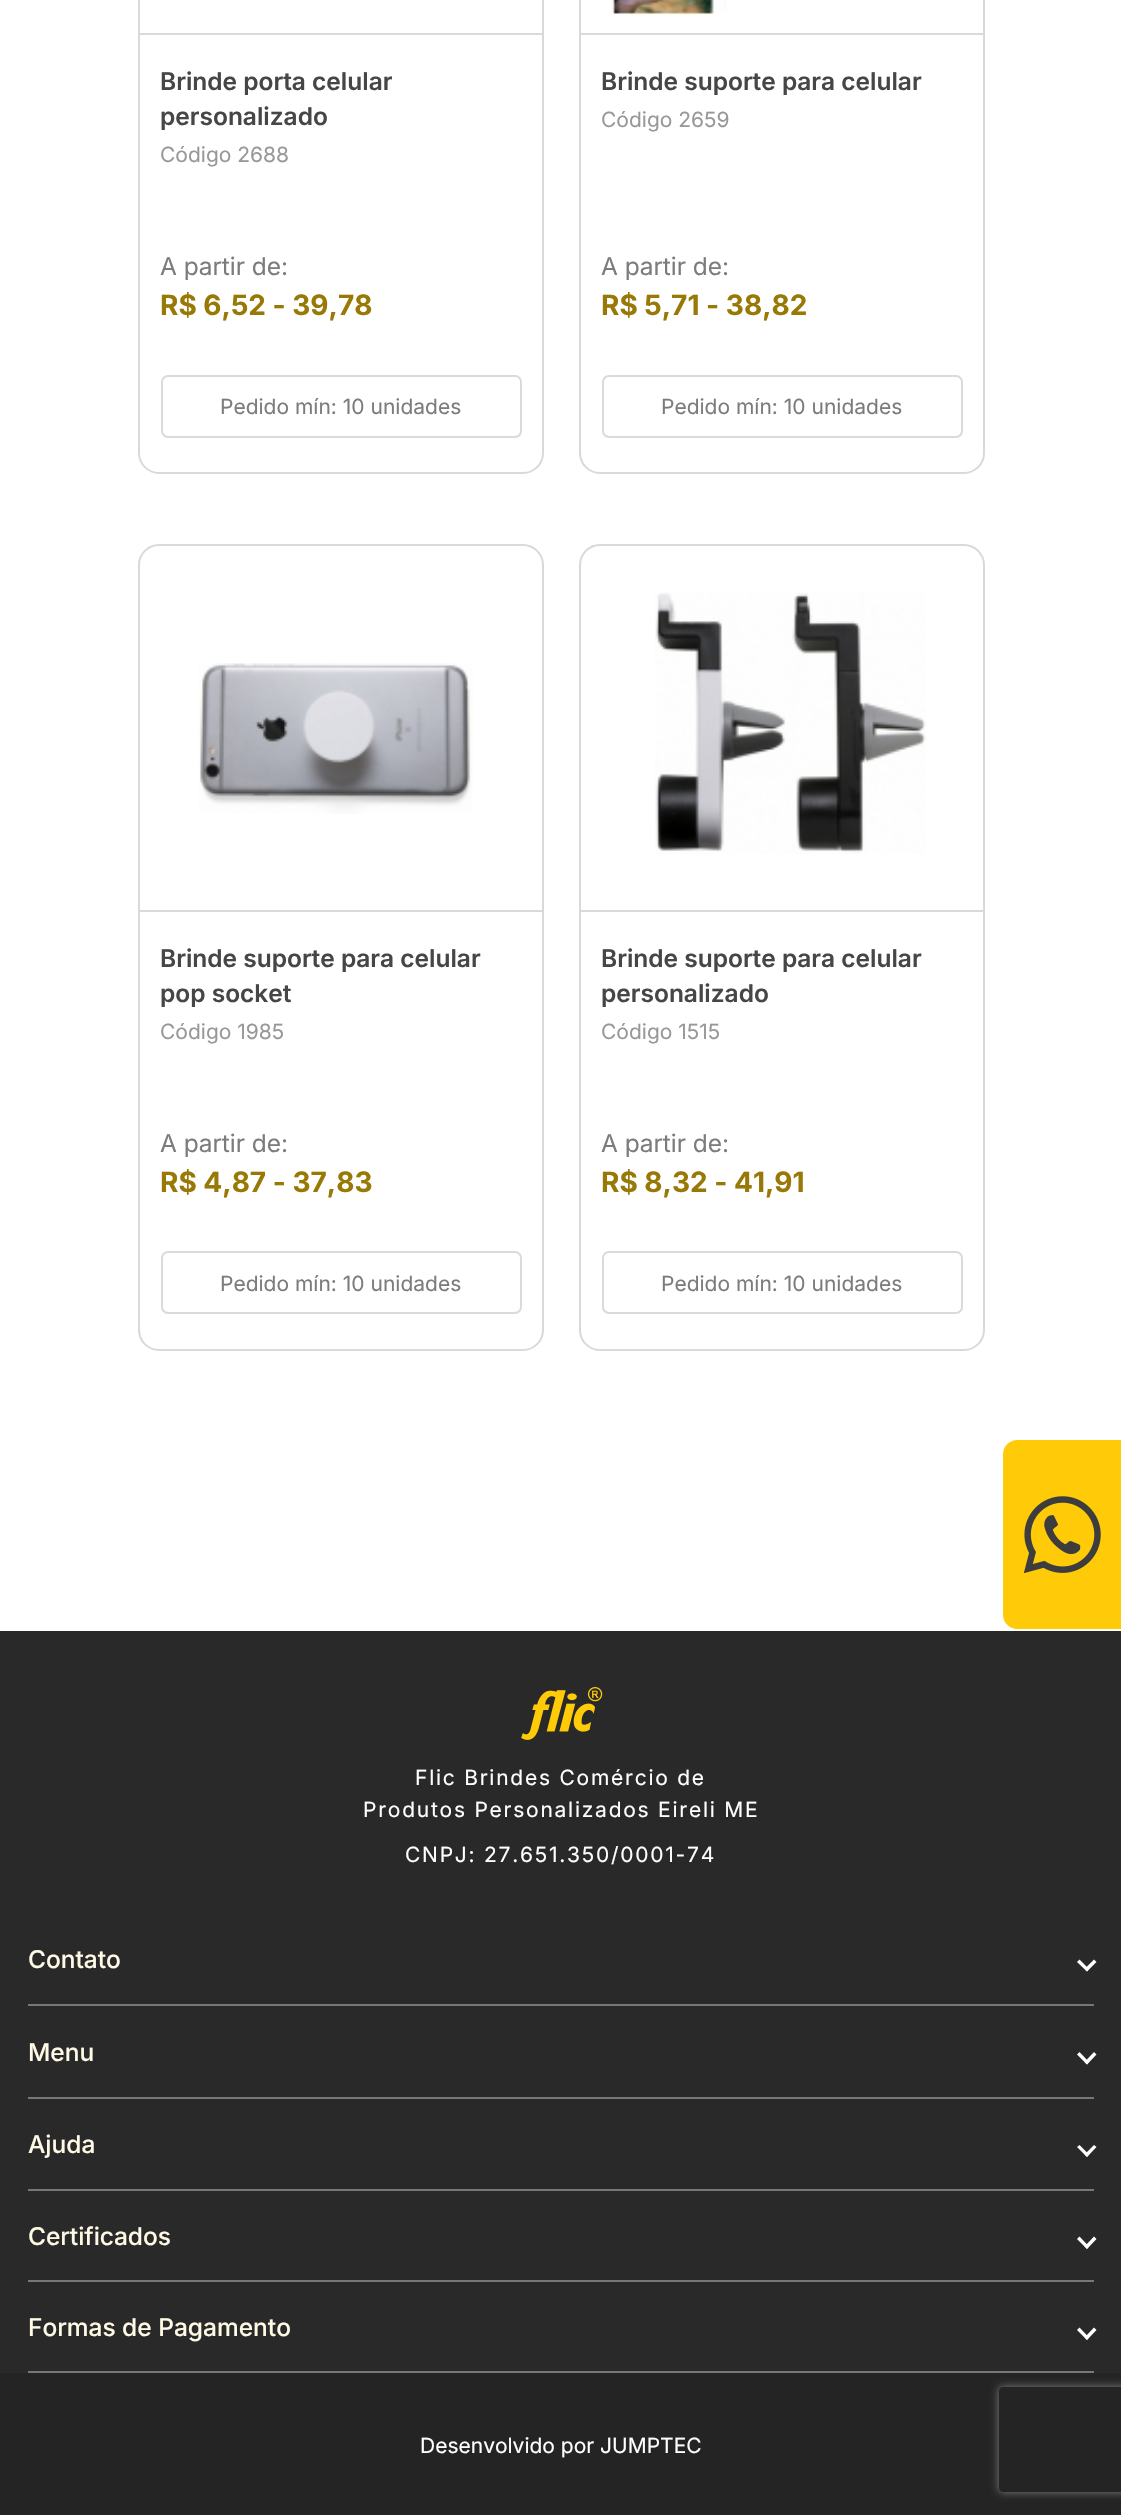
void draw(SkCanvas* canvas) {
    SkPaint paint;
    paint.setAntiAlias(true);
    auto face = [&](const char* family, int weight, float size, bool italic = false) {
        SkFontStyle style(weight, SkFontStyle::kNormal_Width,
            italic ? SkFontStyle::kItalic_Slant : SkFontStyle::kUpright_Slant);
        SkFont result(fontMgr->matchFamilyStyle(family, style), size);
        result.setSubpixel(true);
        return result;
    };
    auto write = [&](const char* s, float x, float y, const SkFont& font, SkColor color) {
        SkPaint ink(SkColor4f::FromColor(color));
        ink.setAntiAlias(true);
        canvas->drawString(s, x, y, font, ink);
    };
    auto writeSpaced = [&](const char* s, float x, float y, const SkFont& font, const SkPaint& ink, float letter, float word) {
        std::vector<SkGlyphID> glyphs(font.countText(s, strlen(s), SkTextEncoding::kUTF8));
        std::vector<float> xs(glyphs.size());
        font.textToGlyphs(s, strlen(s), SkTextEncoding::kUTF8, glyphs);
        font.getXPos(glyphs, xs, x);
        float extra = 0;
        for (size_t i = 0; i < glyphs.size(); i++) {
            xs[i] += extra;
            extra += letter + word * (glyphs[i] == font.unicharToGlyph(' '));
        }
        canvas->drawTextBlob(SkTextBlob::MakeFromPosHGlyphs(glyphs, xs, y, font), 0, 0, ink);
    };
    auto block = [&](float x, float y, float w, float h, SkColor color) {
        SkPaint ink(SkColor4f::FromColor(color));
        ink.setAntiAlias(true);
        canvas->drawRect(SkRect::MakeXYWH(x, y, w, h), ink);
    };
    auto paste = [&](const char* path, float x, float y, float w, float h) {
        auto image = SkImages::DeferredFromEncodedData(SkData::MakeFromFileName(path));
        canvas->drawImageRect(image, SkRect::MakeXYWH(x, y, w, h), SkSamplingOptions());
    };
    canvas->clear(SK_ColorWHITE);
    paint.setStyle(SkPaint::kStroke_Style);
    paint.setStrokeWidth(2);
    paint.setColor(SkColorSetRGB(217, 217, 217));
    canvas->drawRoundRect(SkRect::MakeXYWH(139, -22, 404, 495), 20, 20, paint);
    block(140, 33, 403, 2, SkColorSetRGB(217, 217, 217));
    auto kFont1 = face("Inter", 600, 24.5f);
    write("Brinde porta celular", 160, 90, kFont1, SkColorSetRGB(70, 70, 70));
    write("personalizado", 160, 125, kFont1, SkColorSetRGB(70, 70, 70));
    auto kFont2 = face("Inter", 400, 21);
    write("Código 2688", 160, 162, kFont2, SkColorSetRGB(152, 152, 152));
    auto kFont3 = face("Inter", 400, 24.5f);
    write("A partir de:", 160, 275, kFont3, SkColorSetRGB(124, 124, 124));
    auto kFont4 = face("Inter", 700, 28);
    write("R$ 6,52 - 39,78", 160, 315, kFont4, SkColorSetRGB(153, 121, 5));
    paint.setColor(SkColorSetRGB(218, 218, 218));
    canvas->drawRoundRect(SkRect::MakeXYWH(162, 376, 359, 61), 6, 6, paint);
    write("Pedido mín: 10 unidades", 220, 414, kFont2, SkColorSetRGB(124, 124, 124));
    paint.setColor(SkColorSetRGB(217, 217, 217));
    canvas->drawRoundRect(SkRect::MakeXYWH(580, -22, 404, 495), 20, 20, paint);
    paste("pic1.png", 611, 0, 116, 15);
    block(581, 33, 403, 2, SkColorSetRGB(217, 217, 217));
    write("Brinde suporte para celular", 601, 90, kFont1, SkColorSetRGB(70, 70, 70));
    write("Código 2659", 601, 127, kFont2, SkColorSetRGB(152, 152, 152));
    write("A partir de:", 601, 275, kFont3, SkColorSetRGB(124, 124, 124));
    write("R$ 5,71 - 38,82", 601, 315, kFont4, SkColorSetRGB(153, 121, 5));
    paint.setColor(SkColorSetRGB(218, 218, 218));
    canvas->drawRoundRect(SkRect::MakeXYWH(603, 376, 359, 61), 6, 6, paint);
    write("Pedido mín: 10 unidades", 661, 414, kFont2, SkColorSetRGB(124, 124, 124));
    paint.setColor(SkColorSetRGB(217, 217, 217));
    canvas->drawRoundRect(SkRect::MakeXYWH(139, 545, 404, 805), 20, 20, paint);
    paste("pic2.png", 198, 663, 275, 151);
    block(140, 910, 403, 2, SkColorSetRGB(217, 217, 217));
    write("Brinde suporte para celular", 160, 967, kFont1, SkColorSetRGB(70, 70, 70));
    write("pop socket", 160, 1002, kFont1, SkColorSetRGB(70, 70, 70));
    write("Código 1985", 160, 1039, kFont2, SkColorSetRGB(152, 152, 152));
    write("A partir de:", 160, 1152, kFont3, SkColorSetRGB(124, 124, 124));
    write("R$ 4,87 - 37,83", 160, 1192, kFont4, SkColorSetRGB(153, 121, 5));
    paint.setColor(SkColorSetRGB(218, 218, 218));
    canvas->drawRoundRect(SkRect::MakeXYWH(162, 1252, 359, 61), 6, 6, paint);
    write("Pedido mín: 10 unidades", 220, 1291, kFont2, SkColorSetRGB(124, 124, 124));
    paint.setColor(SkColorSetRGB(217, 217, 217));
    canvas->drawRoundRect(SkRect::MakeXYWH(580, 545, 404, 805), 20, 20, paint);
    paste("pic3.png", 655, 592, 271, 262);
    block(581, 910, 403, 2, SkColorSetRGB(217, 217, 217));
    write("Brinde suporte para celular", 601, 967, kFont1, SkColorSetRGB(70, 70, 70));
    write("personalizado", 601, 1002, kFont1, SkColorSetRGB(70, 70, 70));
    write("Código 1515", 601, 1039, kFont2, SkColorSetRGB(152, 152, 152));
    write("A partir de:", 601, 1152, kFont3, SkColorSetRGB(124, 124, 124));
    write("R$ 8,32 - 41,91", 601, 1192, kFont4, SkColorSetRGB(153, 121, 5));
    paint.setColor(SkColorSetRGB(218, 218, 218));
    canvas->drawRoundRect(SkRect::MakeXYWH(603, 1252, 359, 61), 6, 6, paint);
    write("Pedido mín: 10 unidades", 661, 1291, kFont2, SkColorSetRGB(124, 124, 124));
    block(0, 1631, 1121, 742, SkColorSetRGB(41, 41, 41));
    paint.setStyle(SkPaint::kFill_Style);
    paint.setColor(SkColorSetRGB(255, 202, 8));
    canvas->drawPath(SkPathBuilder().moveTo(1017, 1440).lineTo(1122, 1440).lineTo(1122, 1629).lineTo(1017, 1629).cubicTo(1009.5f, 1629, 1003, 1622.5f, 1003, 1615).lineTo(1003, 1454).cubicTo(1003, 1446.5f, 1009.5f, 1440, 1017, 1440).close().detach(), paint);
    paste("pic4.png", 1024, 1496, 77, 77);
    paste("pic5.png", 521, 1687, 82, 53);
    paint.setColor(SK_ColorWHITE);
    writeSpaced("Flic Brindes Comércio de", 415, 1785, kFont2, paint, 1.75f, 0);
    writeSpaced("Produtos Personalizados Eireli ME", 363, 1817, kFont2, paint, 1.75f, 0);
    writeSpaced("CNPJ: 27.651.350/0001-74", 405, 1862, kFont2, paint, 1.75f, 0);
    block(28, 2004, 1066, 2, SkColorSetRGB(119, 119, 119));
    auto kFont5 = face("Inter", 500, 24.5f);
    write("Contato", 28, 1968, kFont5, SkColorSetRGB(255, 250, 230));
    canvas->drawPath(SkPathBuilder().moveTo(1096.5f, 1962).lineTo(1087, 1971.5f).lineTo(1084.5f, 1969).lineTo(1094, 1959.5f).close().detach(), paint);
    canvas->drawPath(SkPathBuilder().moveTo(1089, 1969).lineTo(1087, 1971.5f).lineTo(1077, 1962).lineTo(1079.5f, 1959.5f).close().detach(), paint);
    block(28, 2097, 1066, 2, SkColorSetRGB(119, 119, 119));
    write("Menu", 28, 2061, kFont5, SkColorSetRGB(255, 250, 230));
    canvas->drawPath(SkPathBuilder().moveTo(1096.5f, 2054.5f).lineTo(1087, 2064.5f).lineTo(1084.5f, 2062).lineTo(1094, 2052).close().detach(), paint);
    canvas->drawPath(SkPathBuilder().moveTo(1089, 2062).lineTo(1087, 2064.5f).lineTo(1077, 2054.5f).lineTo(1079.5f, 2052).close().detach(), paint);
    block(28, 2189, 1066, 2, SkColorSetRGB(119, 119, 119));
    write("Ajuda", 28, 2153, kFont5, SkColorSetRGB(255, 250, 230));
    canvas->drawPath(SkPathBuilder().moveTo(1096.5f, 2147).lineTo(1087, 2157).lineTo(1084.5f, 2154.5f).lineTo(1094, 2145).close().detach(), paint);
    canvas->drawPath(SkPathBuilder().moveTo(1089, 2154.5f).lineTo(1087, 2157).lineTo(1077, 2147).lineTo(1079.5f, 2145).close().detach(), paint);
    block(28, 2280, 1066, 2, SkColorSetRGB(119, 119, 119));
    write("Certificados", 28, 2245, kFont5, SkColorSetRGB(255, 250, 230));
    canvas->drawPath(SkPathBuilder().moveTo(1096.5f, 2239).lineTo(1087, 2249).lineTo(1084.5f, 2246.5f).lineTo(1094, 2236.5f).close().detach(), paint);
    canvas->drawPath(SkPathBuilder().moveTo(1089, 2246.5f).lineTo(1087, 2249).lineTo(1077, 2239).lineTo(1079.5f, 2236.5f).close().detach(), paint);
    block(28, 2371, 1066, 2, SkColorSetRGB(119, 119, 119));
    write("Formas de Pagamento", 28, 2336, kFont5, SkColorSetRGB(255, 250, 230));
    canvas->drawPath(SkPathBuilder().moveTo(1096.5f, 2330).lineTo(1087, 2340).lineTo(1084.5f, 2337.5f).lineTo(1094, 2327.5f).close().detach(), paint);
    canvas->drawPath(SkPathBuilder().moveTo(1089, 2337.5f).lineTo(1087, 2340).lineTo(1077, 2330).lineTo(1079.5f, 2327.5f).close().detach(), paint);
    block(0, 2373, 1121, 142, SkColorSetRGB(36, 36, 36));
    write("Desenvolvido por JUMPTEC", 420, 2453, kFont2, SK_ColorWHITE);
    canvas->save();
    canvas->clipPath(SkPathBuilder(SkPathFillType::kEvenOdd).moveTo(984, 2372).lineTo(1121, 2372).lineTo(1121, 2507).lineTo(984, 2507).close().moveTo(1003, 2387).lineTo(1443, 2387).cubicTo(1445, 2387, 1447, 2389, 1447, 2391).lineTo(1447, 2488).cubicTo(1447, 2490, 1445, 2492, 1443, 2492).lineTo(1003, 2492).cubicTo(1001, 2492, 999, 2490, 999, 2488).lineTo(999, 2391).cubicTo(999, 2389, 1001, 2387, 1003, 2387).close().detach(), true);
    paint.setColor(SkColorSetRGB(128, 128, 128));
    paint.setMaskFilter(SkMaskFilter::MakeBlur(kNormal_SkBlurStyle, 4.5f));
    canvas->drawRoundRect(SkRect::MakeXYWH(999, 2387, 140, 105), 4, 4, paint);
    paint.setMaskFilter(nullptr);
    canvas->restore();
}
